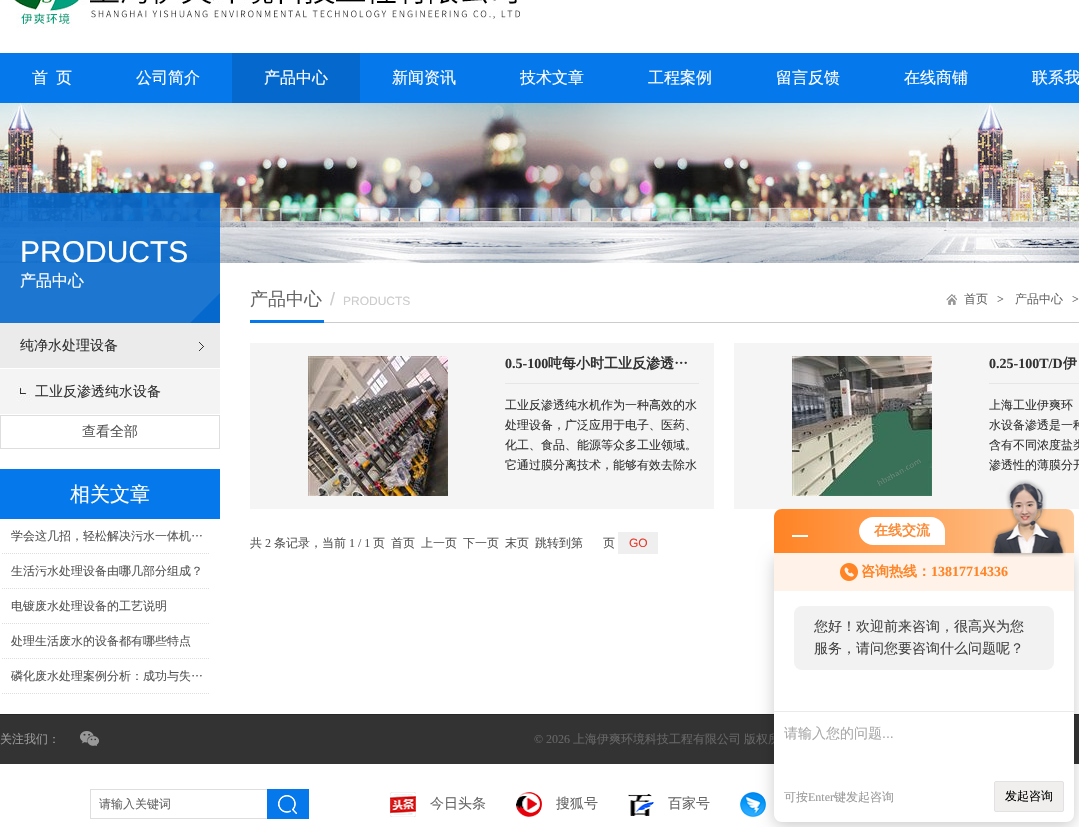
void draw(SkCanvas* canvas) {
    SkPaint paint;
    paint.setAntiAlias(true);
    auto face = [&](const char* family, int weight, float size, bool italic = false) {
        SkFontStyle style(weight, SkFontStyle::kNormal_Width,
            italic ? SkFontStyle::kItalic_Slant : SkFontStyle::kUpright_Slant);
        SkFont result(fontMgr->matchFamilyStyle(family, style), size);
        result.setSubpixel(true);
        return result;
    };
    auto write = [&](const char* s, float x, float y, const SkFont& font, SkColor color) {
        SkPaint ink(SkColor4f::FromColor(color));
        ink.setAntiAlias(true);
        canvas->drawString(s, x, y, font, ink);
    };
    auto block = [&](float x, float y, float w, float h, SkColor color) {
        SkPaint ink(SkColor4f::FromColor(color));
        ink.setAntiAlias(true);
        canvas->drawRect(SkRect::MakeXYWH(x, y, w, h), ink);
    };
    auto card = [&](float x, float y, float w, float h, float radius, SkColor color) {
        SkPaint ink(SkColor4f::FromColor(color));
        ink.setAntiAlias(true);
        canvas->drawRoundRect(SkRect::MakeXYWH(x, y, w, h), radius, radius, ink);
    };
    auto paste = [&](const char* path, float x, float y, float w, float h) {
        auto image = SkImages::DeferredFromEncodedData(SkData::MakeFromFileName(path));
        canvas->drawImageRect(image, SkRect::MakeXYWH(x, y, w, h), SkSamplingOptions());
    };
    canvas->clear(SK_ColorWHITE);
    paste("pic1.png", 10, 0, 510, 28);
    block(0, 53, 1079, 50, SkColorSetRGB(5, 120, 235));
    auto kFont1 = face("WenQuanYi Zen Hei", 500, 16);
    write("首", 32, 83, kFont1, SK_ColorWHITE);
    write("页", 56, 83, kFont1, SK_ColorWHITE);
    write("公司简介", 136, 83, kFont1, SK_ColorWHITE);
    block(232, 53, 128, 50, SkColorSetRGB(4, 104, 204));
    write("产品中心", 264, 83, kFont1, SK_ColorWHITE);
    write("新闻资讯", 392, 83, kFont1, SK_ColorWHITE);
    write("技术文章", 520, 83, kFont1, SK_ColorWHITE);
    write("工程案例", 648, 83, kFont1, SK_ColorWHITE);
    write("留言反馈", 776, 83, kFont1, SK_ColorWHITE);
    write("在线商铺", 904, 83, kFont1, SK_ColorWHITE);
    write("联系我", 1032, 83, kFont1, SK_ColorWHITE);
    paste("pic2.png", 0, 103, 1079, 160);
    paste("pic3.png", 0, 193, 220, 130);
    auto kFont2 = face("Liberation Sans", 400, 30);
    write("PRODUCTS", 20, 262, kFont2, SK_ColorWHITE);
    write("产品中心", 20, 286, kFont1, SK_ColorWHITE);
    paste("pic4.png", 0, 323, 220, 45);
    auto kFont3 = face("WenQuanYi Zen Hei", 500, 14);
    write("纯净水处理设备", 20, 350, kFont3, SkColorSetRGB(51, 51, 51));
    paste("pic5.png", 0, 369, 220, 45);
    write("工业反渗透纯水设备", 35, 396, kFont3, SkColorSetRGB(51, 51, 51));
    paint.setStyle(SkPaint::kStroke_Style);
    paint.setStrokeWidth(1);
    paint.setColor(SkColorSetRGB(222, 222, 222));
    canvas->drawRect(SkRect::MakeXYWH(0.5f, 415.5f, 219, 33), paint);
    write("查看全部", 82, 436, kFont3, SkColorSetRGB(85, 85, 85));
    block(0, 469, 220, 50, SkColorSetRGB(5, 120, 235));
    auto kFont4 = face("WenQuanYi Zen Hei", 500, 20);
    write("相关文章", 70, 501, kFont4, SK_ColorWHITE);
    paint.setPathEffect(SkDashPathEffect::Make({{1, 1}}, 0));
    canvas->drawPath(SkPathBuilder().moveTo(2, 553.5f).lineTo(209, 553.5f).detach(), paint);
    paint.setPathEffect(nullptr);
    auto kFont5 = face("WenQuanYi Zen Hei", 500, 12);
    write("学会这几招，轻松解决污水一体机…", 11, 540, kFont5, SkColorSetRGB(85, 85, 85));
    paint.setPathEffect(SkDashPathEffect::Make({{1, 1}}, 0));
    canvas->drawPath(SkPathBuilder().moveTo(2, 588.5f).lineTo(209, 588.5f).detach(), paint);
    paint.setPathEffect(nullptr);
    write("生活污水处理设备由哪几部分组成？", 11, 575, kFont5, SkColorSetRGB(85, 85, 85));
    paint.setPathEffect(SkDashPathEffect::Make({{1, 1}}, 0));
    canvas->drawPath(SkPathBuilder().moveTo(2, 623.5f).lineTo(209, 623.5f).detach(), paint);
    paint.setPathEffect(nullptr);
    write("电镀废水处理设备的工艺说明", 11, 610, kFont5, SkColorSetRGB(85, 85, 85));
    paint.setPathEffect(SkDashPathEffect::Make({{1, 1}}, 0));
    canvas->drawPath(SkPathBuilder().moveTo(2, 658.5f).lineTo(209, 658.5f).detach(), paint);
    paint.setPathEffect(nullptr);
    write("处理生活废水的设备都有哪些特点", 11, 645, kFont5, SkColorSetRGB(85, 85, 85));
    paint.setPathEffect(SkDashPathEffect::Make({{1, 1}}, 0));
    canvas->drawPath(SkPathBuilder().moveTo(2, 693.5f).lineTo(209, 693.5f).detach(), paint);
    paint.setPathEffect(nullptr);
    write("磷化废水处理案例分析：成功与失…", 11, 680, kFont5, SkColorSetRGB(85, 85, 85));
    paste("pic6.png", 250, 320, 829, 3);
    auto kFont6 = face("WenQuanYi Zen Hei", 500, 18);
    write("产品中心", 250, 305, kFont6, SkColorSetRGB(102, 102, 102));
    auto kFont7 = face("Liberation Sans", 400, 18);
    write("/", 330, 305, kFont7, SkColorSetRGB(204, 204, 204));
    auto kFont8 = face("Liberation Sans", 400, 12);
    write("PRODUCTS", 343, 305, kFont8, SkColorSetRGB(204, 204, 204));
    paste("pic7.png", 946, 294, 11, 11);
    write("首页", 964, 303, kFont5, SkColorSetRGB(102, 102, 102));
    auto kFont9 = face("Liberation Serif", 400, 12);
    write(">", 997, 303, kFont9, SkColorSetRGB(102, 102, 102));
    write("产品中心", 1015, 303, kFont5, SkColorSetRGB(102, 102, 102));
    write(">", 1072, 303, kFont9, SkColorSetRGB(102, 102, 102));
    block(250, 343, 464, 166, SkColorSetRGB(245, 245, 245));
    paste("pic8.png", 308, 356, 140, 140);
    block(505, 383, 194, 1, SkColorSetRGB(230, 230, 230));
    auto kFont10 = face("Liberation Serif", 700, 14);
    write("0.5-100", 505, 368, kFont10, SkColorSetRGB(51, 51, 51));
    auto kFont11 = face("WenQuanYi Zen Hei", 700, 14);
    write("吨每小时工业反渗透…", 548, 368, kFont11, SkColorSetRGB(51, 51, 51));
    write("工业反渗透纯水机作为一种高效的水", 505, 409, kFont5, SkColorSetRGB(51, 51, 51));
    write("处理设备，广泛应用于电子、医药、", 505, 429, kFont5, SkColorSetRGB(51, 51, 51));
    write("化工、食品、能源等众多工业领域。", 505, 449, kFont5, SkColorSetRGB(51, 51, 51));
    write("它通过膜分离技术，能够有效去除水", 505, 469, kFont5, SkColorSetRGB(51, 51, 51));
    block(734, 343, 345, 166, SkColorSetRGB(245, 245, 245));
    paste("pic9.png", 792, 356, 140, 140);
    block(989, 383, 90, 1, SkColorSetRGB(230, 230, 230));
    write("0.25-100T/D", 989, 368, kFont10, SkColorSetRGB(51, 51, 51));
    write("伊", 1063, 368, kFont11, SkColorSetRGB(51, 51, 51));
    write("上海工业伊爽环", 989, 409, kFont5, SkColorSetRGB(51, 51, 51));
    write("水设备渗透是一种", 989, 429, kFont5, SkColorSetRGB(51, 51, 51));
    write("含有不同浓度盐类", 989, 449, kFont5, SkColorSetRGB(51, 51, 51));
    write("渗透性的薄膜分开", 989, 469, kFont5, SkColorSetRGB(51, 51, 51));
    write("共", 250, 547, kFont5, SkColorSetRGB(85, 85, 85));
    write("2", 265, 547, kFont9, SkColorSetRGB(85, 85, 85));
    write("条记录，当前", 274, 547, kFont5, SkColorSetRGB(85, 85, 85));
    write("1 / 1", 349, 547, kFont9, SkColorSetRGB(85, 85, 85));
    write("页", 373, 547, kFont5, SkColorSetRGB(85, 85, 85));
    write("首页", 391, 547, kFont5, SkColorSetRGB(85, 85, 85));
    write("上一页", 421, 547, kFont5, SkColorSetRGB(85, 85, 85));
    write("下一页", 463, 547, kFont5, SkColorSetRGB(85, 85, 85));
    write("末页", 505, 547, kFont5, SkColorSetRGB(85, 85, 85));
    write("跳转到第", 535, 547, kFont5, SkColorSetRGB(85, 85, 85));
    write("页", 603, 547, kFont5, SkColorSetRGB(85, 85, 85));
    block(618, 532, 40, 22, SkColorSetRGB(239, 239, 239));
    write("GO", 629, 547, kFont8, SkColorSetRGB(230, 57, 43));
    block(0, 715, 1079, 49, SkColorSetRGB(51, 51, 51));
    block(0, 714, 1079, 1, SkColorSetRGB(38, 38, 38));
    write("关注我们：", 0, 743, kFont5, SkColorSetRGB(153, 153, 153));
    paste("pic10.png", 80, 731, 19, 15);
    write("© 2026", 534, 743, kFont9, SkColorSetRGB(102, 102, 102));
    write("上海伊爽环境科技工程有限公司", 573, 743, kFont5, SkColorSetRGB(102, 102, 102));
    write("版权所", 744, 743, kFont5, SkColorSetRGB(102, 102, 102));
    paste("pic17.png", 740, 792, 26, 25);
    paint.setStyle(SkPaint::kFill_Style);
    paint.setColor(SkColorSetARGB(51, 0, 0, 0));
    paint.setMaskFilter(SkMaskFilter::MakeBlur(kNormal_SkBlurStyle, 8));
    canvas->drawRoundRect(SkRect::MakeXYWH(774, 557, 300, 269), 8, 8, paint);
    paint.setMaskFilter(nullptr);
    {
        const SkColor colors[] = {SkColorSetRGB(255, 131, 36), SkColorSetRGB(254, 203, 156)};
        const float stops[] = {0, 1};
        const SkPoint ends[] = {{774, 531}, {1074, 531}};
        paint.setShader(SkGradientShader::MakeLinear(ends, colors, stops, 2, SkTileMode::kClamp));
        paint.setAlpha(255);
    }
    canvas->drawPath(SkPathBuilder().moveTo(782, 509).lineTo(1066, 509).cubicTo(1070.5f, 509, 1074, 512.5f, 1074, 517).lineTo(1074, 553).lineTo(774, 553).lineTo(774, 517).cubicTo(774, 512.5f, 777.5f, 509, 782, 509).close().detach(), paint);
    block(792, 535, 16, 2, SK_ColorWHITE);
    paint.setShader(nullptr);
    paint.setColor(SK_ColorWHITE);
    canvas->drawPath(SkPathBuilder().moveTo(873, 517).lineTo(931, 517).cubicTo(938.5f, 517, 945, 523.5f, 945, 531).lineTo(945, 545).lineTo(873, 545).cubicTo(865.5f, 545, 859, 538.5f, 859, 531).cubicTo(859, 523.5f, 865.5f, 517, 873, 517).close().detach(), paint);
    write("在线交流", 874, 535, kFont11, SkColorSetRGB(251, 139, 54));
    canvas->drawPath(SkPathBuilder().moveTo(774, 553).lineTo(1074, 553).lineTo(1074, 814).cubicTo(1074, 818.5f, 1070.5f, 822, 1066, 822).lineTo(782, 822).cubicTo(777.5f, 822, 774, 818.5f, 774, 814).close().detach(), paint);
    block(774, 553, 300, 38, SkColorSetRGB(255, 243, 233));
    paste("pic11.png", 990, 479, 76, 78);
    paste("pic12.png", 840, 563, 18, 18);
    write("咨询热线：", 861, 576, kFont11, SkColorSetRGB(255, 132, 38));
    write("13817714336", 931, 576, kFont10, SkColorSetRGB(255, 132, 38));
    card(794, 606, 260, 64, 8, SkColorSetRGB(242, 242, 242));
    write("您好！欢迎前来咨询，很高兴为您", 814, 631, kFont3, SkColorSetRGB(68, 68, 68));
    write("服务，请问您要咨询什么问题呢？", 814, 653, kFont3, SkColorSetRGB(68, 68, 68));
    block(774, 711, 300, 1, SkColorSetRGB(234, 234, 234));
    write("请输入您的问题", 784, 738, kFont3, SkColorSetRGB(170, 170, 170));
    auto kFont12 = face("Liberation Sans", 400, 14);
    write("...", 882, 738, kFont12, SkColorSetRGB(170, 170, 170));
    write("可按", 784, 801, kFont5, SkColorSetRGB(153, 153, 153));
    write("Enter", 808, 801, kFont9, SkColorSetRGB(153, 153, 153));
    write("键发起咨询", 834, 801, kFont5, SkColorSetRGB(153, 153, 153));
    paint.setColor(SkColorSetRGB(240, 239, 237));
    canvas->drawRoundRect(SkRect::MakeXYWH(994.5f, 781.5f, 69, 30), 1.5f, 1.5f, paint);
    paint.setStyle(SkPaint::kStroke_Style);
    paint.setColor(SkColorSetRGB(226, 226, 226));
    canvas->drawRoundRect(SkRect::MakeXYWH(994.5f, 781.5f, 69, 30), 1.5f, 1.5f, paint);
    write("发起咨询", 1005, 800, kFont5, SK_ColorBLACK);
    paint.setColor(SkColorSetRGB(222, 222, 222));
    canvas->drawRect(SkRect::MakeXYWH(90.5f, 789.5f, 177, 29), paint);
    write("请输入关键词", 99, 808, kFont5, SkColorSetRGB(102, 102, 102));
    block(267, 789, 42, 30, SkColorSetRGB(5, 120, 235));
    paste("pic13.png", 278, 795, 19, 19);
    paste("pic14.png", 390, 792, 26, 25);
    write("今日头条", 430, 808, kFont3, SkColorSetRGB(102, 102, 102));
    paste("pic15.png", 516, 792, 26, 25);
    write("搜狐号", 556, 808, kFont3, SkColorSetRGB(102, 102, 102));
    paste("pic16.png", 628, 794, 26, 22);
    write("百家号", 668, 808, kFont3, SkColorSetRGB(102, 102, 102));
}
